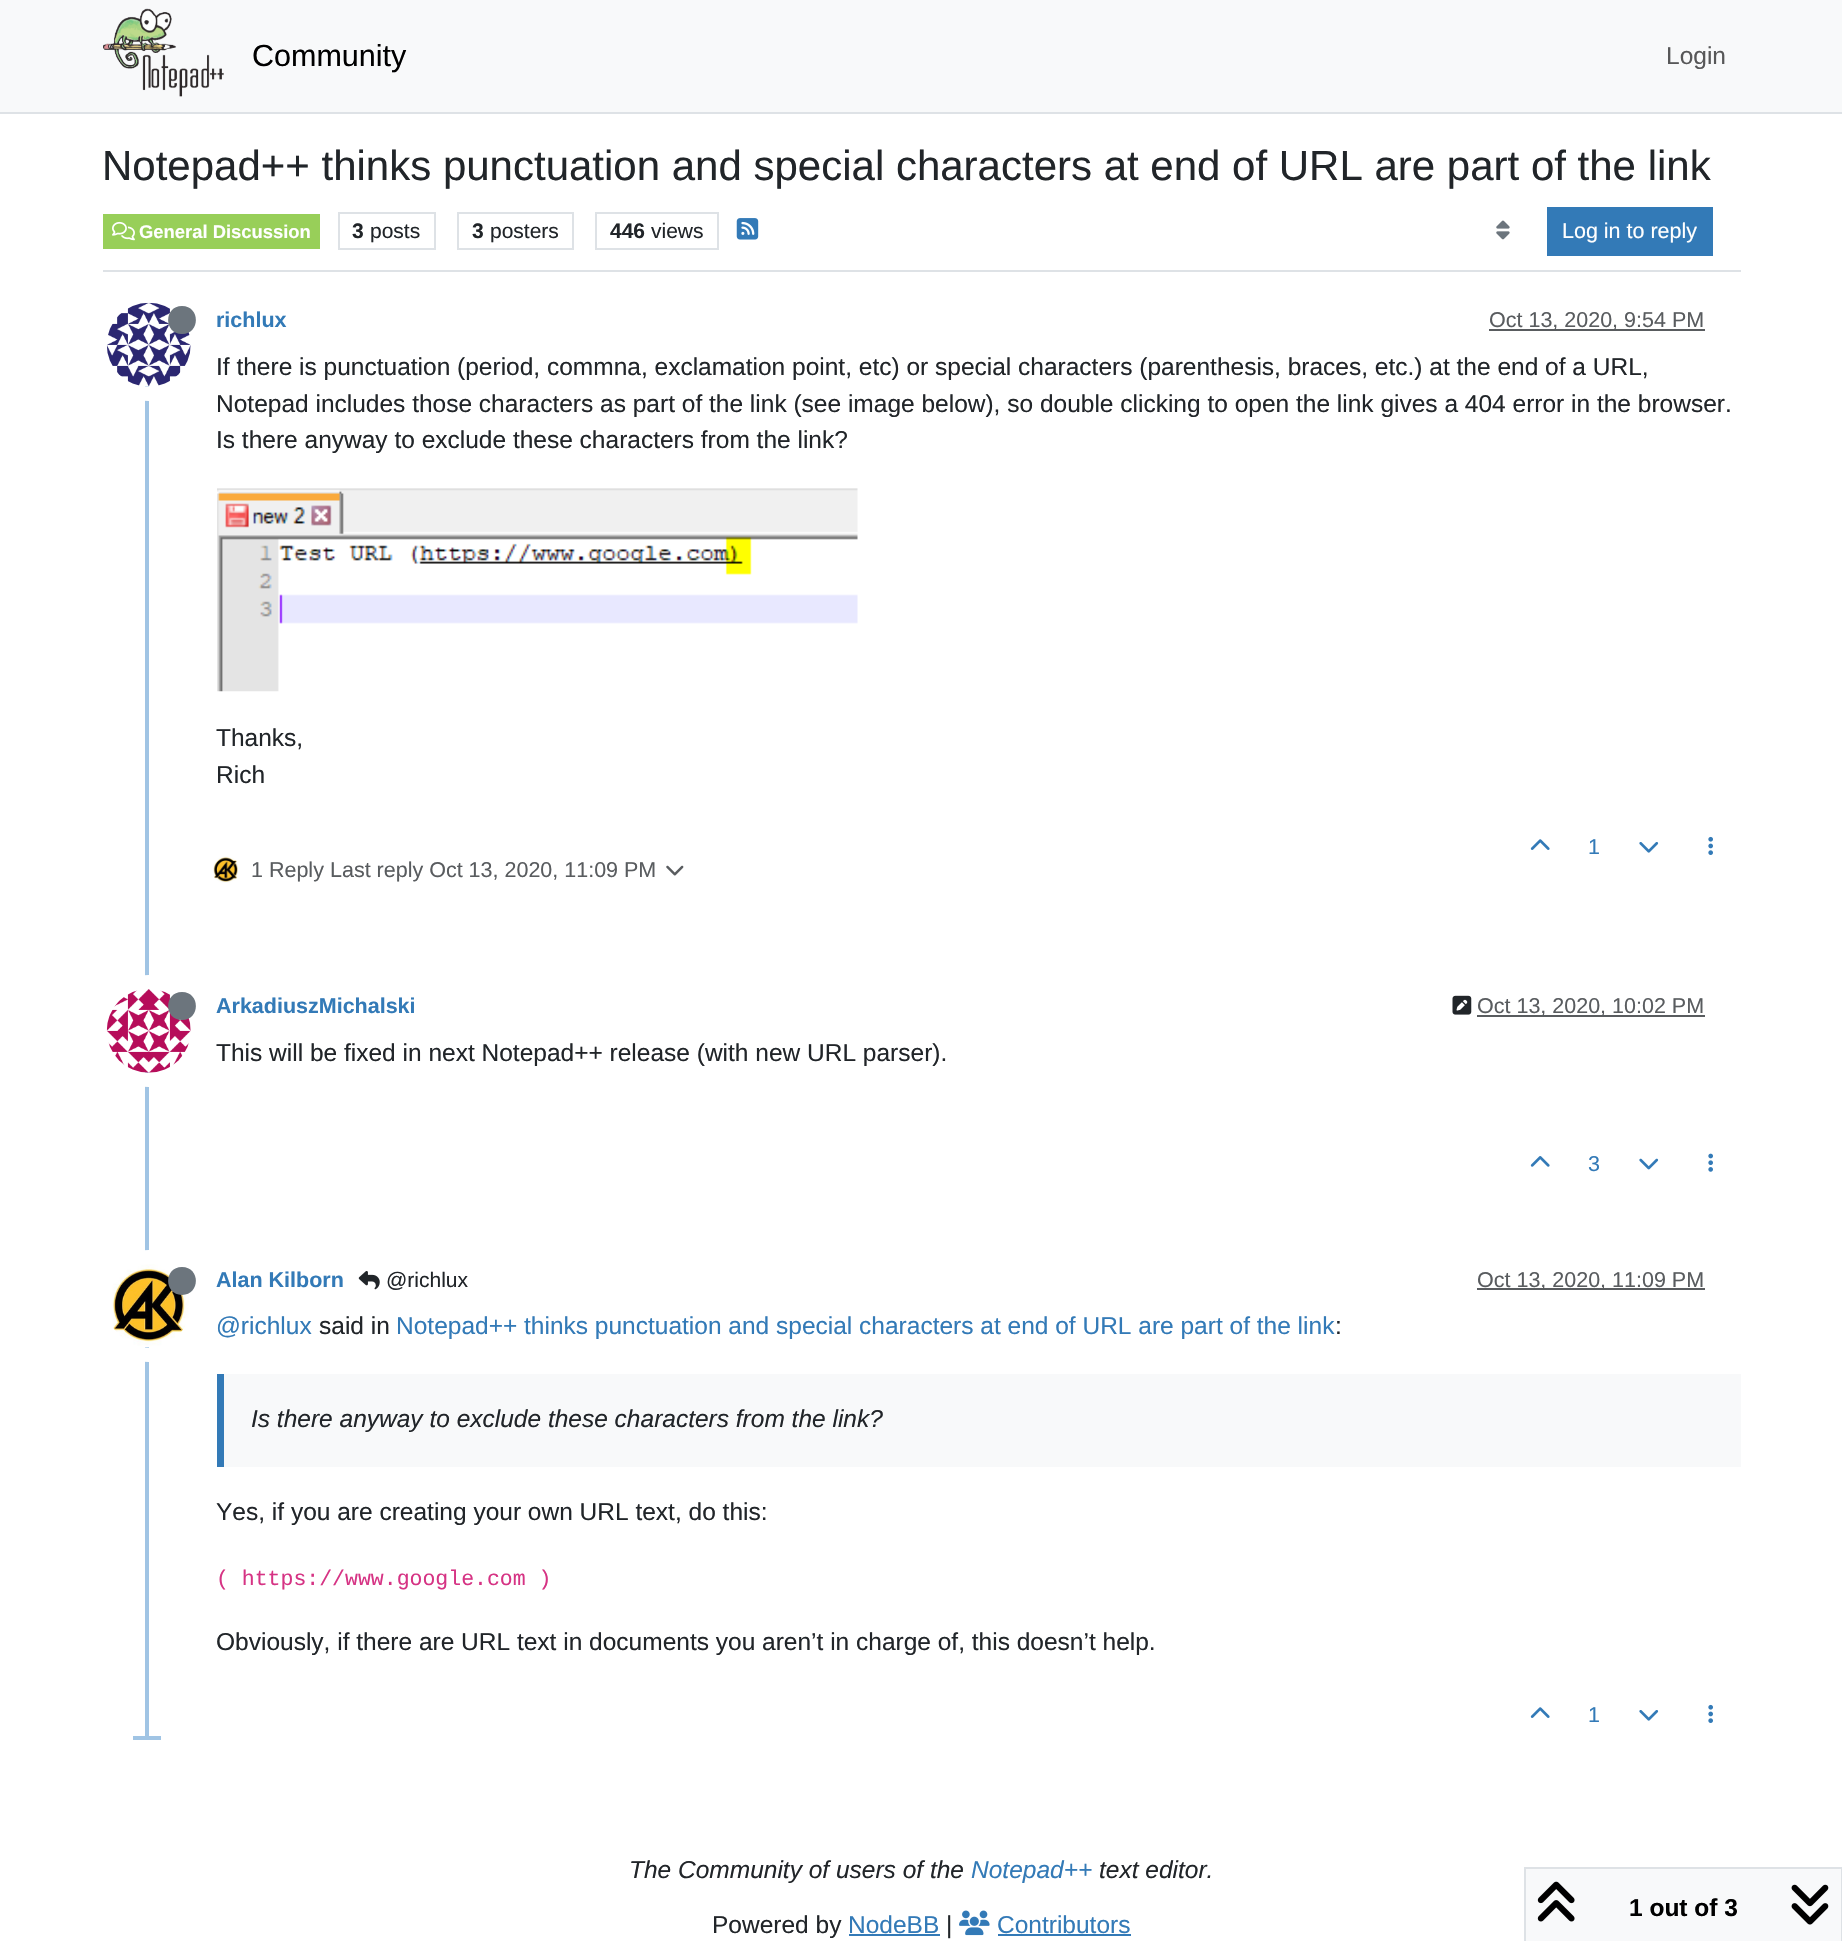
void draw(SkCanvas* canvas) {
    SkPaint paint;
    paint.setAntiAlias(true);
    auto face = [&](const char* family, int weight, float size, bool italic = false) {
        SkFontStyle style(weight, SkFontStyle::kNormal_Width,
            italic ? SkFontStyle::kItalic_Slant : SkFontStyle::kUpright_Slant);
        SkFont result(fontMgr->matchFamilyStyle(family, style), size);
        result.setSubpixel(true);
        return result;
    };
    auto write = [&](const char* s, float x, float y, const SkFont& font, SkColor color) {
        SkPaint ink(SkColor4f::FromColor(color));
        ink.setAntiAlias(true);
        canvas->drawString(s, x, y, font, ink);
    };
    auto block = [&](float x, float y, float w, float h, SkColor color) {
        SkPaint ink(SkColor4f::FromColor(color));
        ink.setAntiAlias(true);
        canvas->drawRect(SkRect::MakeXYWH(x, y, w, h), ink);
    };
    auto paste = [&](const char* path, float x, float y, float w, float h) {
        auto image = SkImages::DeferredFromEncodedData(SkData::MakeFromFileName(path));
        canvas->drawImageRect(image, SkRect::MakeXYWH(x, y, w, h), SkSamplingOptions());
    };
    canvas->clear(SK_ColorWHITE);
    block(0, 0, 1842, 112, SkColorSetRGB(248, 249, 250));
    block(0, 112, 1842, 2, SkColorSetRGB(222, 226, 230));
    paste("pic1.png", 103, 8, 121, 89);
    auto kFont1 = face("Liberation Sans", 400, 30.5f);
    write("Community", 252, 66, kFont1, SK_ColorBLACK);
    auto kFont2 = face("Liberation Sans", 400, 24.5f);
    write("Login", 1666, 64, kFont2, SkColorSetRGB(87, 87, 88));
    block(103, 270, 1638, 2, SkColorSetRGB(222, 226, 230));
    auto kFont3 = face("Liberation Sans", 400, 42);
    write("Notepad++ thinks punctuation and special characters at end of URL are part of the link", 102, 180, kFont3, SkColorSetRGB(33, 37, 41));
    block(103, 214, 217, 35, SkColorSetRGB(152, 207, 89));
    paste("pic2.png", 112, 221, 23, 20);
    auto kFont4 = face("Liberation Sans", 700, 18.4f);
    write("General Discussion", 139, 238, kFont4, SK_ColorWHITE);
    paint.setStyle(SkPaint::kStroke_Style);
    paint.setStrokeWidth(2);
    paint.setColor(SkColorSetRGB(222, 226, 230));
    canvas->drawRect(SkRect::MakeXYWH(339, 213, 96, 36), paint);
    auto kFont5 = face("Liberation Sans", 700, 21);
    write("3", 352, 238, kFont5, SkColorSetRGB(33, 37, 41));
    auto kFont6 = face("Liberation Sans", 400, 21);
    write("posts", 370, 238, kFont6, SkColorSetRGB(33, 37, 41));
    canvas->drawRect(SkRect::MakeXYWH(458, 213, 115, 36), paint);
    write("3", 472, 238, kFont5, SkColorSetRGB(33, 37, 41));
    write("posters", 490, 238, kFont6, SkColorSetRGB(33, 37, 41));
    canvas->drawRect(SkRect::MakeXYWH(596, 213, 122, 36), paint);
    write("446", 610, 238, kFont5, SkColorSetRGB(33, 37, 41));
    write("views", 651, 238, kFont6, SkColorSetRGB(33, 37, 41));
    paste("pic3.png", 736, 218, 23, 22);
    paste("pic4.png", 1496, 220, 14, 20);
    block(1547, 207, 166, 49, SkColorSetRGB(51, 122, 183));
    auto kFont7 = face("Liberation Sans", 400, 21.5f);
    write("Log in to reply", 1562, 238, kFont7, SK_ColorWHITE);
    block(145, 299, 4, 1441, SkColorSetRGB(160, 196, 228));
    paint.setStrokeWidth(14);
    paint.setColor(SK_ColorWHITE);
    canvas->drawCircle(149, 345, 49, paint);
    paste("pic5.png", 106, 302, 85, 85);
    paint.setStyle(SkPaint::kFill_Style);
    paint.setColor(SkColorSetRGB(108, 117, 125));
    canvas->drawPath(SkPathBuilder().moveTo(182, 334).cubicTo(200.5f, 334, 200.5f, 306, 182, 306).cubicTo(163.5f, 306, 163.5f, 334, 182, 334).close().detach(), paint);
    auto kFont8 = face("Liberation Sans", 700, 21.5f);
    write("richlux", 216, 327, kFont8, SkColorSetRGB(51, 122, 183));
    block(1489, 329, 216, 2, SkColorSetRGB(89, 92, 95));
    write("Oct 13, 2020, 9:54 PM", 1489, 327, kFont7, SkColorSetRGB(89, 92, 95));
    write("If there is punctuation (period, commna, exclamation point, etc) or special characters (parenthesis, braces, etc.) at the end of a URL,", 216, 375, kFont2, SkColorSetRGB(33, 37, 41));
    write("Notepad includes those characters as part of the link (see image below), so double clicking to open the link gives a 404 error in the browser.", 216, 412, kFont2, SkColorSetRGB(33, 37, 41));
    write("Is there anyway to exclude these characters from the link?", 216, 448, kFont2, SkColorSetRGB(33, 37, 41));
    paste("pic6.png", 217, 488, 641, 204);
    write("Thanks,", 216, 746, kFont2, SkColorSetRGB(33, 37, 41));
    write("Rich", 216, 783, kFont2, SkColorSetRGB(33, 37, 41));
    paste("pic7.png", 1530, 839, 20, 11);
    write("1", 1588, 854, kFont7, SkColorSetRGB(51, 122, 183));
    paste("pic8.png", 1639, 842, 20, 11);
    paste("pic9.png", 1708, 836, 5, 19);
    paste("pic10.png", 213, 856, 25, 27);
    write("1 Reply", 251, 877, kFont7, SkColorSetRGB(89, 92, 95));
    write("Last reply Oct 13, 2020, 11:09 PM", 330, 877, kFont7, SkColorSetRGB(89, 92, 95));
    paste("pic11.png", 666, 865, 18, 11);
    paint.setStyle(SkPaint::kStroke_Style);
    paint.setColor(SK_ColorWHITE);
    canvas->drawCircle(149, 1031, 49, paint);
    paste("pic12.png", 106, 989, 85, 84);
    paint.setStyle(SkPaint::kFill_Style);
    paint.setColor(SkColorSetRGB(108, 117, 125));
    canvas->drawPath(SkPathBuilder().moveTo(182, 1020).cubicTo(200.5f, 1020, 200.5f, 992, 182, 992).cubicTo(163.5f, 992, 163.5f, 1020, 182, 1020).close().detach(), paint);
    write("ArkadiuszMichalski", 216, 1013, kFont8, SkColorSetRGB(51, 122, 183));
    paste("pic13.png", 1452, 995, 20, 20);
    block(1477, 1015, 228, 2, SkColorSetRGB(89, 92, 95));
    write("Oct 13, 2020, 10:02 PM", 1477, 1013, kFont7, SkColorSetRGB(89, 92, 95));
    write("This will be fixed in next Notepad++ release (with new URL parser).", 216, 1061, kFont2, SkColorSetRGB(33, 37, 41));
    paste("pic14.png", 1530, 1156, 20, 11);
    write("3", 1588, 1171, kFont7, SkColorSetRGB(51, 122, 183));
    paste("pic15.png", 1639, 1158, 20, 12);
    paste("pic16.png", 1708, 1153, 5, 19);
    paint.setStyle(SkPaint::kStroke_Style);
    paint.setColor(SK_ColorWHITE);
    canvas->drawCircle(149, 1306, 49, paint);
    paste("pic17.png", 112, 1264, 77, 84);
    paint.setStyle(SkPaint::kFill_Style);
    paint.setColor(SkColorSetRGB(108, 117, 125));
    canvas->drawPath(SkPathBuilder().moveTo(182, 1295).cubicTo(200.5f, 1294.5f, 200.5f, 1267, 182, 1267).cubicTo(163.5f, 1267, 163.5f, 1294.5f, 182, 1295).close().detach(), paint);
    write("Alan Kilborn", 216, 1287, kFont8, SkColorSetRGB(51, 122, 183));
    paste("pic18.png", 358, 1271, 22, 19);
    write("@richlux", 386, 1287, kFont6, SkColorSetRGB(33, 37, 41));
    block(1477, 1288, 228, 2, SkColorSetRGB(89, 92, 95));
    write("Oct 13, 2020, 11:09 PM", 1477, 1287, kFont7, SkColorSetRGB(89, 92, 95));
    write("@richlux", 216, 1334, kFont2, SkColorSetRGB(51, 122, 183));
    write("said in", 319, 1334, kFont2, SkColorSetRGB(33, 37, 41));
    write("Notepad++ thinks punctuation and special characters at end of URL are part of the link", 396, 1334, kFont2, SkColorSetRGB(51, 122, 183));
    write(":", 1335, 1334, kFont2, SkColorSetRGB(33, 37, 41));
    block(224, 1374, 1517, 93, SkColorSetRGB(248, 249, 250));
    block(217, 1374, 7, 93, SkColorSetRGB(51, 122, 183));
    auto kFont9 = face("Liberation Sans", 400, 24.5f, true);
    write("Is there anyway to exclude these characters from the link?", 251, 1427, kFont9, SkColorSetRGB(33, 37, 41));
    write("Yes, if you are creating your own URL text, do this:", 216, 1520, kFont2, SkColorSetRGB(33, 37, 41));
    auto kFont10 = face("Liberation Mono", 400, 21.5f);
    write("( https://www.google.com )", 216, 1585, kFont10, SkColorSetRGB(214, 51, 132));
    write("Obviously, if there are URL text in documents you aren’t in charge of, this doesn’t help.", 216, 1650, kFont2, SkColorSetRGB(33, 37, 41));
    paste("pic7.png", 1530, 1707, 20, 11);
    write("1", 1588, 1722, kFont7, SkColorSetRGB(51, 122, 183));
    paste("pic8.png", 1639, 1710, 20, 11);
    paste("pic9.png", 1708, 1704, 5, 19);
    block(133, 1736, 28, 4, SkColorSetRGB(160, 196, 228));
    paint.setColor(SkColorSetRGB(248, 249, 250));
    canvas->drawRect(SkRect::MakeXYWH(1525, 1868, 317, 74), paint);
    paint.setStyle(SkPaint::kStroke_Style);
    paint.setStrokeWidth(2);
    paint.setColor(SkColorSetRGB(222, 226, 230));
    canvas->drawRect(SkRect::MakeXYWH(1525, 1868, 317, 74), paint);
    paste("pic19.png", 1537, 1881, 38, 41);
    auto kFont11 = face("Liberation Sans", 700, 24.5f);
    write("1 out of 3", 1629, 1916, kFont11, SK_ColorBLACK);
    paste("pic20.png", 1791, 1884, 38, 41);
    write("The Community of users of the", 629, 1878, kFont9, SkColorSetRGB(33, 37, 41));
    write("Notepad++", 971, 1878, kFont9, SkColorSetRGB(51, 122, 183));
    write("text editor.", 1099, 1878, kFont9, SkColorSetRGB(33, 37, 41));
    write("Powered by", 712, 1933, kFont2, SkColorSetRGB(33, 37, 41));
    write("NodeBB", 848, 1933, kFont2, SkColorSetRGB(51, 122, 183));
    block(849, 1934, 91, 2, SkColorSetRGB(51, 122, 183));
    write("|", 946, 1933, kFont2, SkColorSetRGB(33, 37, 41));
    paste("pic21.png", 959, 1910, 31, 26);
    write("Contributors", 997, 1933, kFont2, SkColorSetRGB(51, 122, 183));
    block(998, 1934, 133, 2, SkColorSetRGB(51, 122, 183));
}
